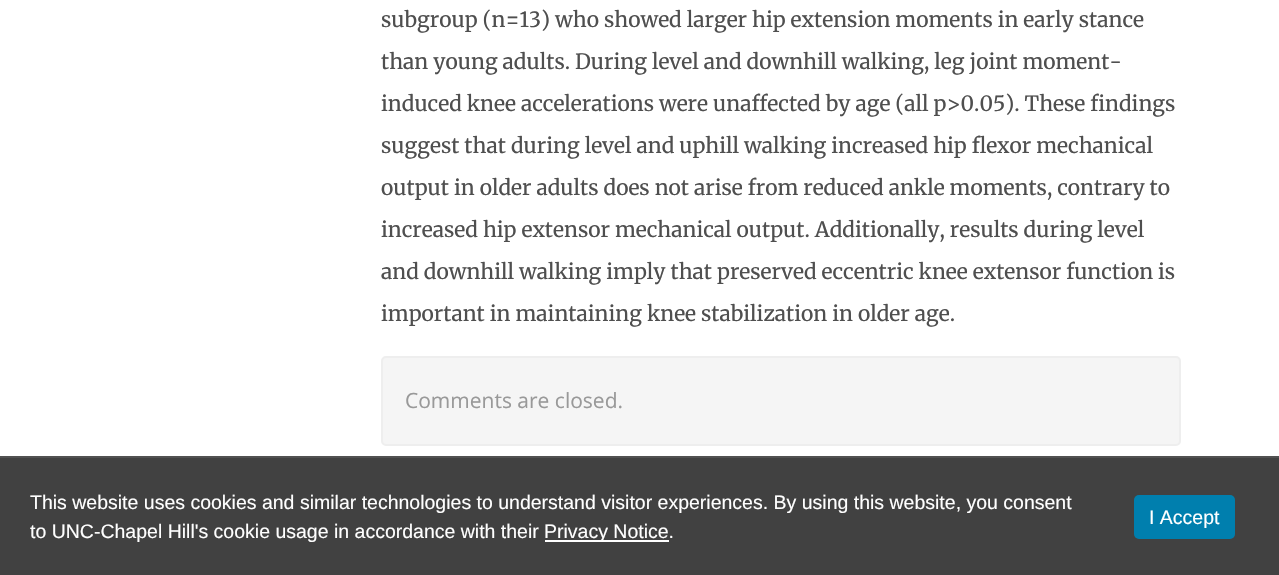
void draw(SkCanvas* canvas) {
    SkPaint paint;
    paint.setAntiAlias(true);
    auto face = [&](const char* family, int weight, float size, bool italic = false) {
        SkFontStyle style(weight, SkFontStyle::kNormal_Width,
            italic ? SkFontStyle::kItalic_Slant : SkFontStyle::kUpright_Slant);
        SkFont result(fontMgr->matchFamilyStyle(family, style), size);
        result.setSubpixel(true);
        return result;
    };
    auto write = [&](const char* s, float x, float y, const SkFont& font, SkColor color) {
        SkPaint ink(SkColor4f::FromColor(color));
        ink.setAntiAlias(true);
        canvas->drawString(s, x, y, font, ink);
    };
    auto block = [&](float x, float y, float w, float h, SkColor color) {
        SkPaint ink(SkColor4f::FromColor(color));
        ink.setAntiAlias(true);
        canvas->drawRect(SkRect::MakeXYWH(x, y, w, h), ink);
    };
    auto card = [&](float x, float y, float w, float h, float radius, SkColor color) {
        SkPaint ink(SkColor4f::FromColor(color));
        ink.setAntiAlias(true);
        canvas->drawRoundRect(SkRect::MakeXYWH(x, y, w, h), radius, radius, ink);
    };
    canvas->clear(SK_ColorWHITE);
    auto kFont1 = face("Merriweather", 400, 21);
    write("subgroup (n=13) who showed larger hip extension moments in early stance", 381, 27, kFont1, SkColorSetRGB(79, 79, 79));
    write("than young adults. During level and downhill walking, leg joint moment-", 381, 69, kFont1, SkColorSetRGB(79, 79, 79));
    write("induced knee accelerations were unaffected by age (all p>0.05). These findings", 381, 111, kFont1, SkColorSetRGB(79, 79, 79));
    write("suggest that during level and uphill walking increased hip flexor mechanical", 381, 153, kFont1, SkColorSetRGB(79, 79, 79));
    write("output in older adults does not arise from reduced ankle moments, contrary to", 381, 195, kFont1, SkColorSetRGB(79, 79, 79));
    write("increased hip extensor mechanical output. Additionally, results during level", 381, 237, kFont1, SkColorSetRGB(79, 79, 79));
    write("and downhill walking imply that preserved eccentric knee extensor function is", 381, 279, kFont1, SkColorSetRGB(79, 79, 79));
    write("important in maintaining knee stabilization in older age.", 381, 321, kFont1, SkColorSetRGB(79, 79, 79));
    paint.setColor(SkColorSetRGB(245, 245, 245));
    canvas->drawRoundRect(SkRect::MakeXYWH(382, 357, 798, 88), 4, 4, paint);
    paint.setStyle(SkPaint::kStroke_Style);
    paint.setStrokeWidth(2);
    paint.setColor(SkColorSetRGB(238, 238, 238));
    canvas->drawRoundRect(SkRect::MakeXYWH(382, 357, 798, 88), 4, 4, paint);
    auto kFont2 = face("Open Sans", 400, 21);
    write("Comments are closed.", 405, 408, kFont2, SkColorSetRGB(153, 153, 153));
    block(0, 458, 1279, 117, SkColorSetRGB(65, 65, 65));
    block(0, 456, 1279, 2, SkColorSetRGB(81, 81, 81));
    auto kFont3 = face("Liberation Sans", 400, 19.5f);
    write("This website uses cookies and similar technologies to understand visitor experiences. By using this website, you consent", 30, 509, kFont3, SK_ColorWHITE);
    write("to UNC-Chapel Hill's cookie usage in accordance with their", 30, 538, kFont3, SK_ColorWHITE);
    block(545, 540, 124, 2, SK_ColorWHITE);
    write("Privacy Notice.", 544, 538, kFont3, SK_ColorWHITE);
    card(1134, 495, 101, 44, 5, SkColorSetRGB(0, 127, 174));
    write("I Accept", 1149, 524, kFont3, SK_ColorWHITE);
}
